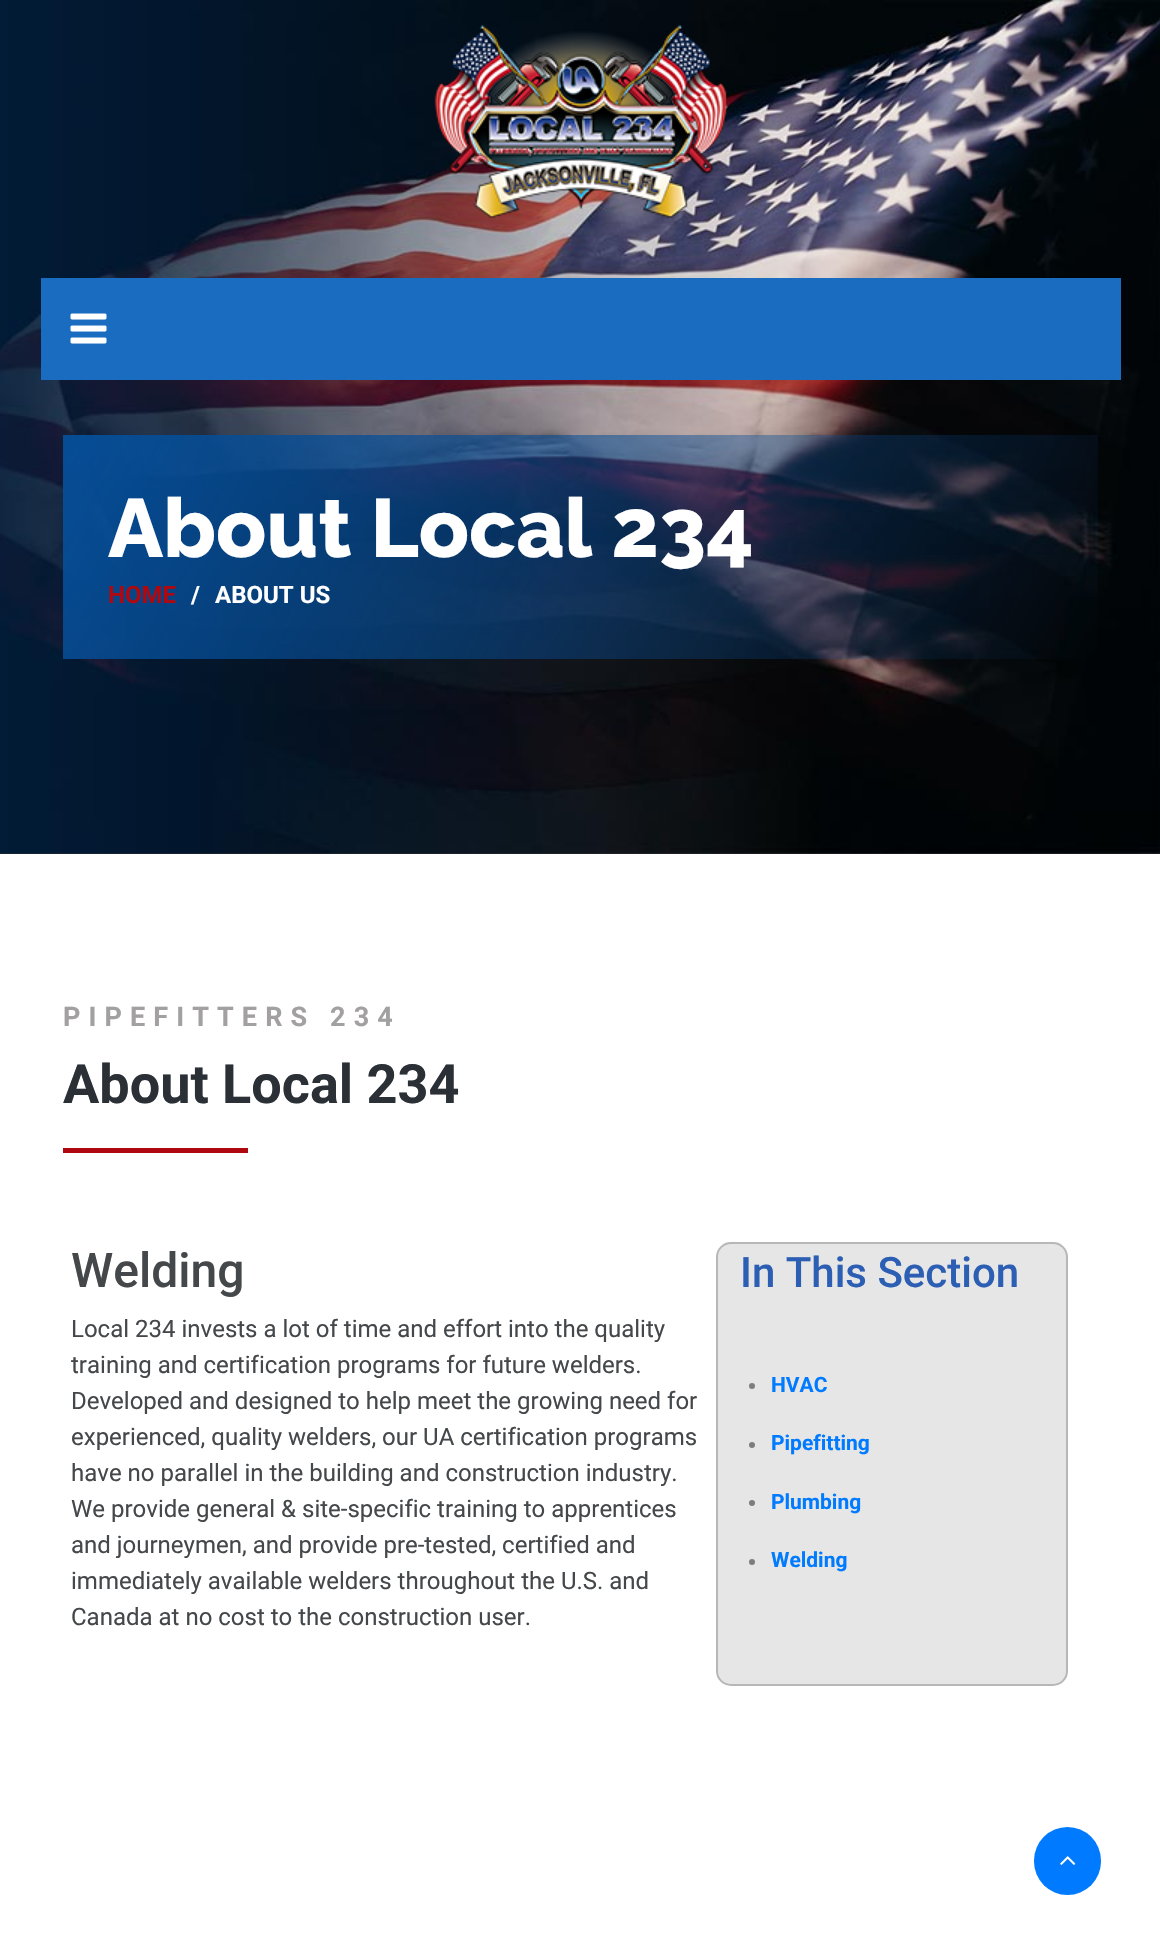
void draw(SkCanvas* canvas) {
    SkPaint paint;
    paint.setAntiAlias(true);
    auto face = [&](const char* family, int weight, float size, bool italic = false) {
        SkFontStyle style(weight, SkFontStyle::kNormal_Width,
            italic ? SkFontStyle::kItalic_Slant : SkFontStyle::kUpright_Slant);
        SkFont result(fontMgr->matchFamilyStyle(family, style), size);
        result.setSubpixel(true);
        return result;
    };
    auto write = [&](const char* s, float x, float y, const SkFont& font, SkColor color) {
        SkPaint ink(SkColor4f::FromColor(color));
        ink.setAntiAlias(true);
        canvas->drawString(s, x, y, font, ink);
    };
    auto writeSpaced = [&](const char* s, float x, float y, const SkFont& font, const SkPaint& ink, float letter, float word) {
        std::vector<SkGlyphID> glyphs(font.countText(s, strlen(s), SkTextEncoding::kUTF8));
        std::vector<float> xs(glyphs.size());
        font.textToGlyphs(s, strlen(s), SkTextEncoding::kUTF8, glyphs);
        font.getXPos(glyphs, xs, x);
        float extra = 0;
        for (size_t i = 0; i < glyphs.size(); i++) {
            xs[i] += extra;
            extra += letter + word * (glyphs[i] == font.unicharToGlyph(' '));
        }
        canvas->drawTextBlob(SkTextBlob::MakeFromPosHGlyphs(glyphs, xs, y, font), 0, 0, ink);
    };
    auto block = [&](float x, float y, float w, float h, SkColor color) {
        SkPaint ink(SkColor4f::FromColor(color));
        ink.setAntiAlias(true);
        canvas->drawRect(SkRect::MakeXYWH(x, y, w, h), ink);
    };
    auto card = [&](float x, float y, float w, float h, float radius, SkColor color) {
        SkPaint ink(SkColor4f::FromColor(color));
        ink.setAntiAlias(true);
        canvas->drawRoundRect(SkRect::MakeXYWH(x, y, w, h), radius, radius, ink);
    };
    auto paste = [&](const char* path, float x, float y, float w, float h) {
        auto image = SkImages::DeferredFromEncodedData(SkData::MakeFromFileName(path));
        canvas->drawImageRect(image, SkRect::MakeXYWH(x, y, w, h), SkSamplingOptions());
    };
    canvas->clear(SK_ColorWHITE);
    block(0, 853, 1160, 1, SkColorSetRGB(43, 48, 54));
    paste("pic3.png", 0, 0, 1160, 854);
    paste("pic1.png", 434, 25, 293, 193);
    block(41, 278, 1080, 102, SkColorSetRGB(25, 108, 191));
    paste("pic2.png", 70, 313, 37, 31);
    auto kFont1 = face("Raleway", 800, 82.5f);
    write("About Local 234", 108, 557, kFont1, SK_ColorWHITE);
    auto kFont2 = face("Roboto", 700, 24);
    write("HOME", 108, 603, kFont2, SkColorSetRGB(175, 8, 16));
    write("/", 191, 603, kFont2, SK_ColorWHITE);
    write("ABOUT US", 215, 603, kFont2, SK_ColorWHITE);
    auto kFont3 = face("Roboto", 700, 27);
    paint.setColor(SkColorSetRGB(162, 160, 160));
    writeSpaced("PIPEFITTERS 234", 63, 1026, kFont3, paint, 8.1f, 0);
    auto kFont4 = face("Roboto", 700, 54);
    write("About Local 234", 63, 1103, kFont4, SkColorSetRGB(43, 48, 54));
    block(63, 1148, 185, 5, SkColorSetRGB(175, 8, 16));
    auto kFont5 = face("Roboto", 500, 48);
    write("Welding", 71, 1287, kFont5, SkColorSetRGB(69, 72, 74));
    auto kFont6 = face("Roboto", 400, 24);
    write("Local 234 invests a lot of time and effort into the quality", 71, 1337, kFont6, SkColorSetRGB(69, 72, 74));
    write("training and certification programs for future welders.", 71, 1373, kFont6, SkColorSetRGB(69, 72, 74));
    write("Developed and designed to help meet the growing need for", 71, 1409, kFont6, SkColorSetRGB(69, 72, 74));
    write("experienced, quality welders, our UA certification programs", 71, 1445, kFont6, SkColorSetRGB(69, 72, 74));
    write("have no parallel in the building and construction industry.", 71, 1481, kFont6, SkColorSetRGB(69, 72, 74));
    write("We provide general & site-specific training to apprentices", 71, 1517, kFont6, SkColorSetRGB(69, 72, 74));
    write("and journeymen, and provide pre-tested, certified and", 71, 1553, kFont6, SkColorSetRGB(69, 72, 74));
    write("immediately available welders throughout the U.S. and", 71, 1589, kFont6, SkColorSetRGB(69, 72, 74));
    write("Canada at no cost to the construction user.", 71, 1625, kFont6, SkColorSetRGB(69, 72, 74));
    paint.setColor(SkColorSetRGB(230, 230, 230));
    canvas->drawRoundRect(SkRect::MakeXYWH(717, 1243, 350, 442), 14, 14, paint);
    paint.setStyle(SkPaint::kStroke_Style);
    paint.setStrokeWidth(2);
    paint.setColor(SkColorSetRGB(183, 183, 183));
    canvas->drawRoundRect(SkRect::MakeXYWH(717, 1243, 350, 442), 14, 14, paint);
    auto kFont7 = face("Roboto", 500, 42);
    write("In This Section", 740, 1287, kFont7, SkColorSetRGB(44, 95, 179));
    paint.setStyle(SkPaint::kFill_Style);
    paint.setColor(SkColorSetRGB(125, 125, 125));
    canvas->drawCircle(752, 1386, 3, paint);
    auto kFont8 = face("Roboto", 700, 21);
    write("HVAC", 771, 1392, kFont8, SkColorSetRGB(0, 123, 255));
    canvas->drawCircle(752, 1445, 3, paint);
    write("Pipefitting", 771, 1450, kFont8, SkColorSetRGB(0, 123, 255));
    canvas->drawCircle(752, 1503, 3, paint);
    write("Plumbing", 771, 1509, kFont8, SkColorSetRGB(0, 123, 255));
    canvas->drawCircle(752, 1562, 3, paint);
    write("Welding", 771, 1567, kFont8, SkColorSetRGB(0, 123, 255));
    card(1034, 1827, 67, 68, 33.5f, SkColorSetRGB(0, 123, 255));
    paste("pic4.png", 1060, 1856, 16, 9);
}
